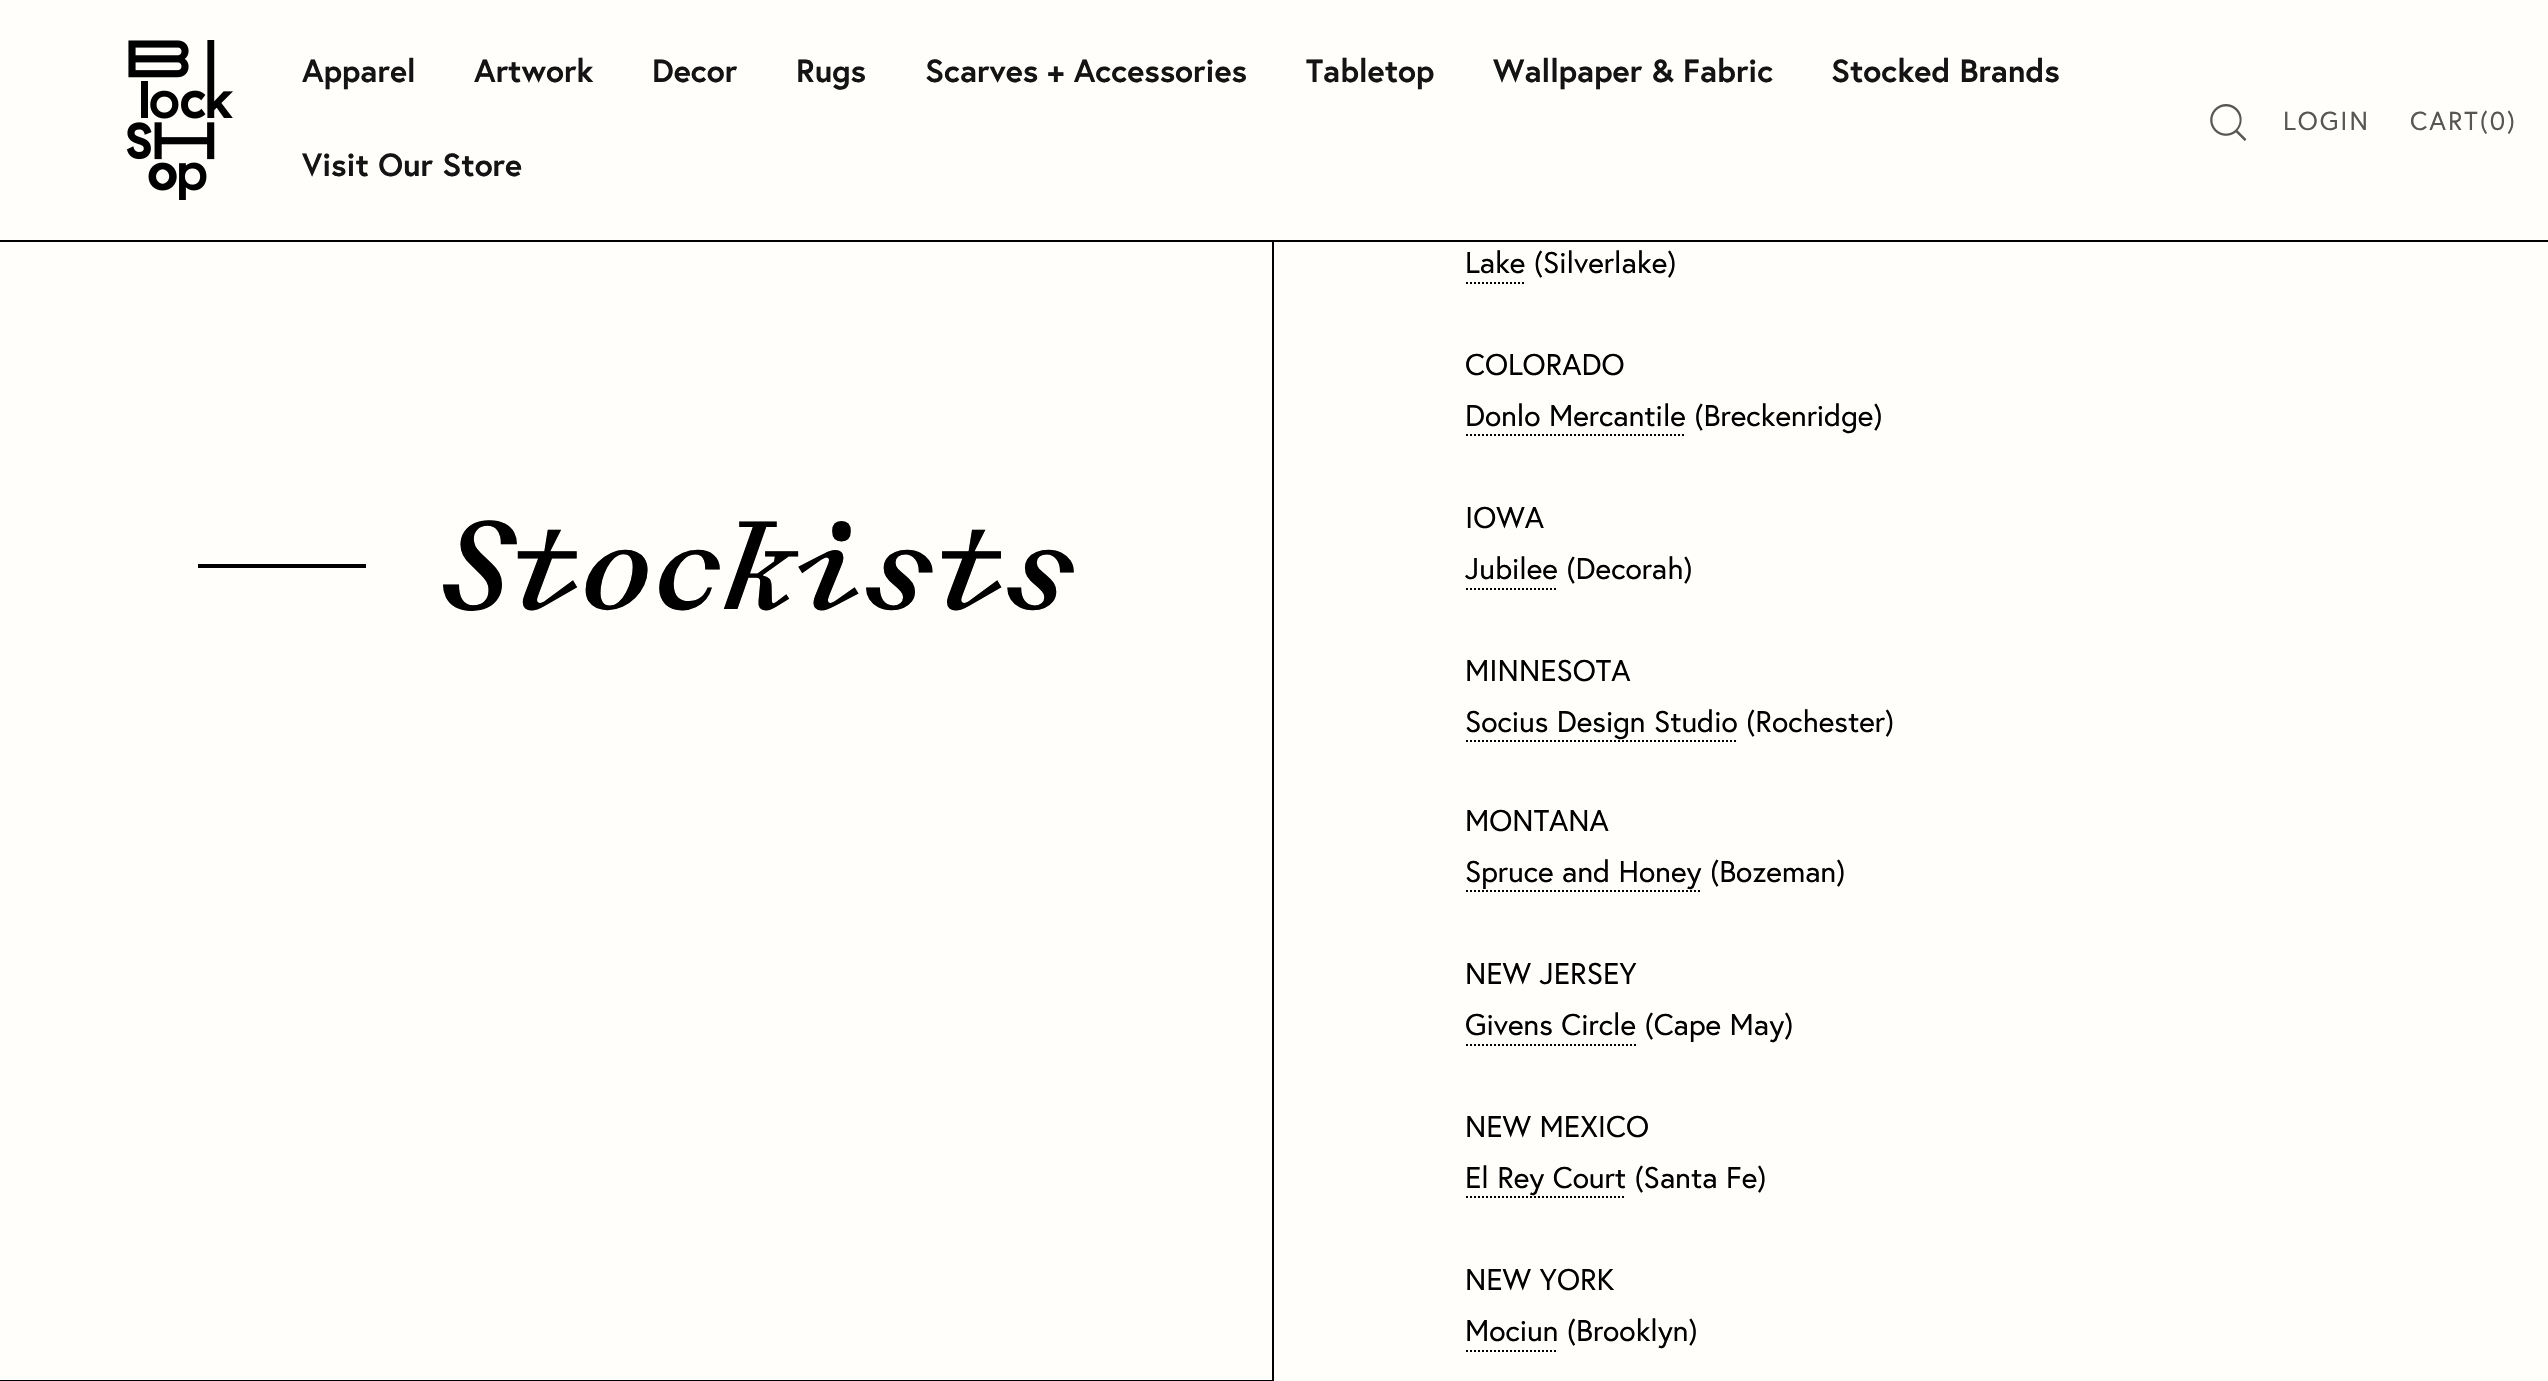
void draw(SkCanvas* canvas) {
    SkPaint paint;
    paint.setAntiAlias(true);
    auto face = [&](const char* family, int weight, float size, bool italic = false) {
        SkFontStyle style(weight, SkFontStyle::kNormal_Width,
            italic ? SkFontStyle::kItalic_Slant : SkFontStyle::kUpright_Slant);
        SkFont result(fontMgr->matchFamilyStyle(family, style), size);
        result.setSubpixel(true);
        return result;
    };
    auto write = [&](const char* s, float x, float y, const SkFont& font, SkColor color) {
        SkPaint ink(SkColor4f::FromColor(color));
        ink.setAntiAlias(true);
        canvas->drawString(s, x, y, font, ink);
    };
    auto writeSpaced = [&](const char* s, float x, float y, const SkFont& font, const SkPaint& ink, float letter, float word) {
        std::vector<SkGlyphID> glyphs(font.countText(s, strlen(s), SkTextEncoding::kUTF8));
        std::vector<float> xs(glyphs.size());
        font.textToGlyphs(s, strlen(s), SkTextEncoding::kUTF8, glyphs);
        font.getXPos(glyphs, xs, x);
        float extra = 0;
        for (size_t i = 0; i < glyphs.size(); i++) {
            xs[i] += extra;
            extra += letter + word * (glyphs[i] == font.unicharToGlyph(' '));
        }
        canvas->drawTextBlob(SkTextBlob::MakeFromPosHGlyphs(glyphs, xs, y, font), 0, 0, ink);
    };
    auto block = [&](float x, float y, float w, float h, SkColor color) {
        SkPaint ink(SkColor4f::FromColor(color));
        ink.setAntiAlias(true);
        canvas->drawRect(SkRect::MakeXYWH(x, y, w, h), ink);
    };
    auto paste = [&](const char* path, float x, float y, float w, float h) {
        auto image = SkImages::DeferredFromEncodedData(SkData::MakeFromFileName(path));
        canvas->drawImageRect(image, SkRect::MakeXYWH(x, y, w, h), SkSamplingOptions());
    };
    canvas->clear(SkColorSetRGB(255, 254, 250));
    block(0, 240, 2548, 2, SK_ColorBLACK);
    paste("pic1.png", 127, 40, 106, 160);
    auto kFont1 = face("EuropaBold", 700, 32);
    write("Apparel", 302, 82, kFont1, SkColorSetRGB(20, 20, 20));
    write("Artwork", 474, 82, kFont1, SkColorSetRGB(20, 20, 20));
    write("Decor", 652, 82, kFont1, SkColorSetRGB(20, 20, 20));
    write("Rugs", 796, 82, kFont1, SkColorSetRGB(20, 20, 20));
    write("Scarves + Accessories", 925, 82, kFont1, SkColorSetRGB(20, 20, 20));
    write("Tabletop", 1306, 82, kFont1, SkColorSetRGB(20, 20, 20));
    write("Wallpaper & Fabric", 1493, 82, kFont1, SkColorSetRGB(20, 20, 20));
    write("Stocked Brands", 1831, 82, kFont1, SkColorSetRGB(20, 20, 20));
    write("Visit Our Store", 302, 176, kFont1, SkColorSetRGB(20, 20, 20));
    paste("pic2.png", 2210, 104, 37, 38);
    auto kFont2 = face("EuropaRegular", 400, 26);
    paint.setColor(SkColorSetRGB(87, 86, 85));
    writeSpaced("LOGIN", 2283, 130, kFont2, paint, 2, 0);
    writeSpaced("CART(0)", 2410, 130, kFont2, paint, 2, 0);
    block(1272, 242, 2, 1139, SK_ColorBLACK);
    block(0, 1380, 1274, 1, SK_ColorBLACK);
    block(198, 564, 168, 4, SK_ColorBLACK);
    auto kFont3 = face("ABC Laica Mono", 500, 127.5f, true);
    paint.setColor(SK_ColorBLACK);
    writeSpaced("Stockists", 438, 609, kFont3, paint, -3.25f, 0);
    auto kFont4 = face("EuropaRegular", 400, 30);
    write("Lake (Silverlake)", 1465, 273, kFont4, SK_ColorBLACK);
    paint.setStyle(SkPaint::kStroke_Style);
    paint.setStrokeWidth(2);
    paint.setPathEffect(SkDashPathEffect::Make({{2, 2}}, 0));
    canvas->drawPath(SkPathBuilder().moveTo(1466, 283).lineTo(1526, 283).detach(), paint);
    paint.setPathEffect(nullptr);
    write("COLORADO", 1465, 375, kFont4, SK_ColorBLACK);
    write("Donlo Mercantile (Breckenridge)", 1465, 426, kFont4, SK_ColorBLACK);
    paint.setPathEffect(SkDashPathEffect::Make({{2, 2}}, 0));
    canvas->drawPath(SkPathBuilder().moveTo(1466, 435).lineTo(1686, 435).detach(), paint);
    paint.setPathEffect(nullptr);
    write("IOWA", 1465, 528, kFont4, SK_ColorBLACK);
    write("Jubilee (Decorah)", 1465, 579, kFont4, SK_ColorBLACK);
    paint.setPathEffect(SkDashPathEffect::Make({{2, 2}}, 0));
    canvas->drawPath(SkPathBuilder().moveTo(1466, 589).lineTo(1558, 589).detach(), paint);
    paint.setPathEffect(nullptr);
    write("MINNESOTA", 1465, 681, kFont4, SK_ColorBLACK);
    write("Socius Design Studio (Rochester)", 1465, 732, kFont4, SK_ColorBLACK);
    paint.setPathEffect(SkDashPathEffect::Make({{2, 2}}, 0));
    canvas->drawPath(SkPathBuilder().moveTo(1466, 741).lineTo(1738, 741).detach(), paint);
    paint.setPathEffect(nullptr);
    write("MONTANA", 1465, 831, kFont4, SK_ColorBLACK);
    write("Spruce and Honey (Bozeman)", 1465, 882, kFont4, SK_ColorBLACK);
    paint.setPathEffect(SkDashPathEffect::Make({{2, 2}}, 0));
    canvas->drawPath(SkPathBuilder().moveTo(1466, 891).lineTo(1702, 891).detach(), paint);
    paint.setPathEffect(nullptr);
    write("NEW JERSEY", 1465, 984, kFont4, SK_ColorBLACK);
    write("Givens Circle (Cape May)", 1465, 1035, kFont4, SK_ColorBLACK);
    paint.setPathEffect(SkDashPathEffect::Make({{2, 2}}, 0));
    canvas->drawPath(SkPathBuilder().moveTo(1466, 1045).lineTo(1562, 1045).detach(), paint);
    paint.setPathEffect(nullptr);
    paint.setPathEffect(SkDashPathEffect::Make({{2, 2}}, 0));
    canvas->drawPath(SkPathBuilder().moveTo(1562, 1045).lineTo(1636, 1045).detach(), paint);
    paint.setPathEffect(nullptr);
    write("NEW MEXICO", 1465, 1137, kFont4, SK_ColorBLACK);
    write("El Rey Court (Santa Fe)", 1465, 1188, kFont4, SK_ColorBLACK);
    paint.setPathEffect(SkDashPathEffect::Make({{2, 2}}, 0));
    canvas->drawPath(SkPathBuilder().moveTo(1466, 1197).lineTo(1626, 1197).detach(), paint);
    paint.setPathEffect(nullptr);
    write("NEW YORK", 1465, 1290, kFont4, SK_ColorBLACK);
    write("Mociun (Brooklyn)", 1465, 1341, kFont4, SK_ColorBLACK);
    paint.setPathEffect(SkDashPathEffect::Make({{2, 2}}, 0));
    canvas->drawPath(SkPathBuilder().moveTo(1466, 1351).lineTo(1558, 1351).detach(), paint);
    paint.setPathEffect(nullptr);
}
